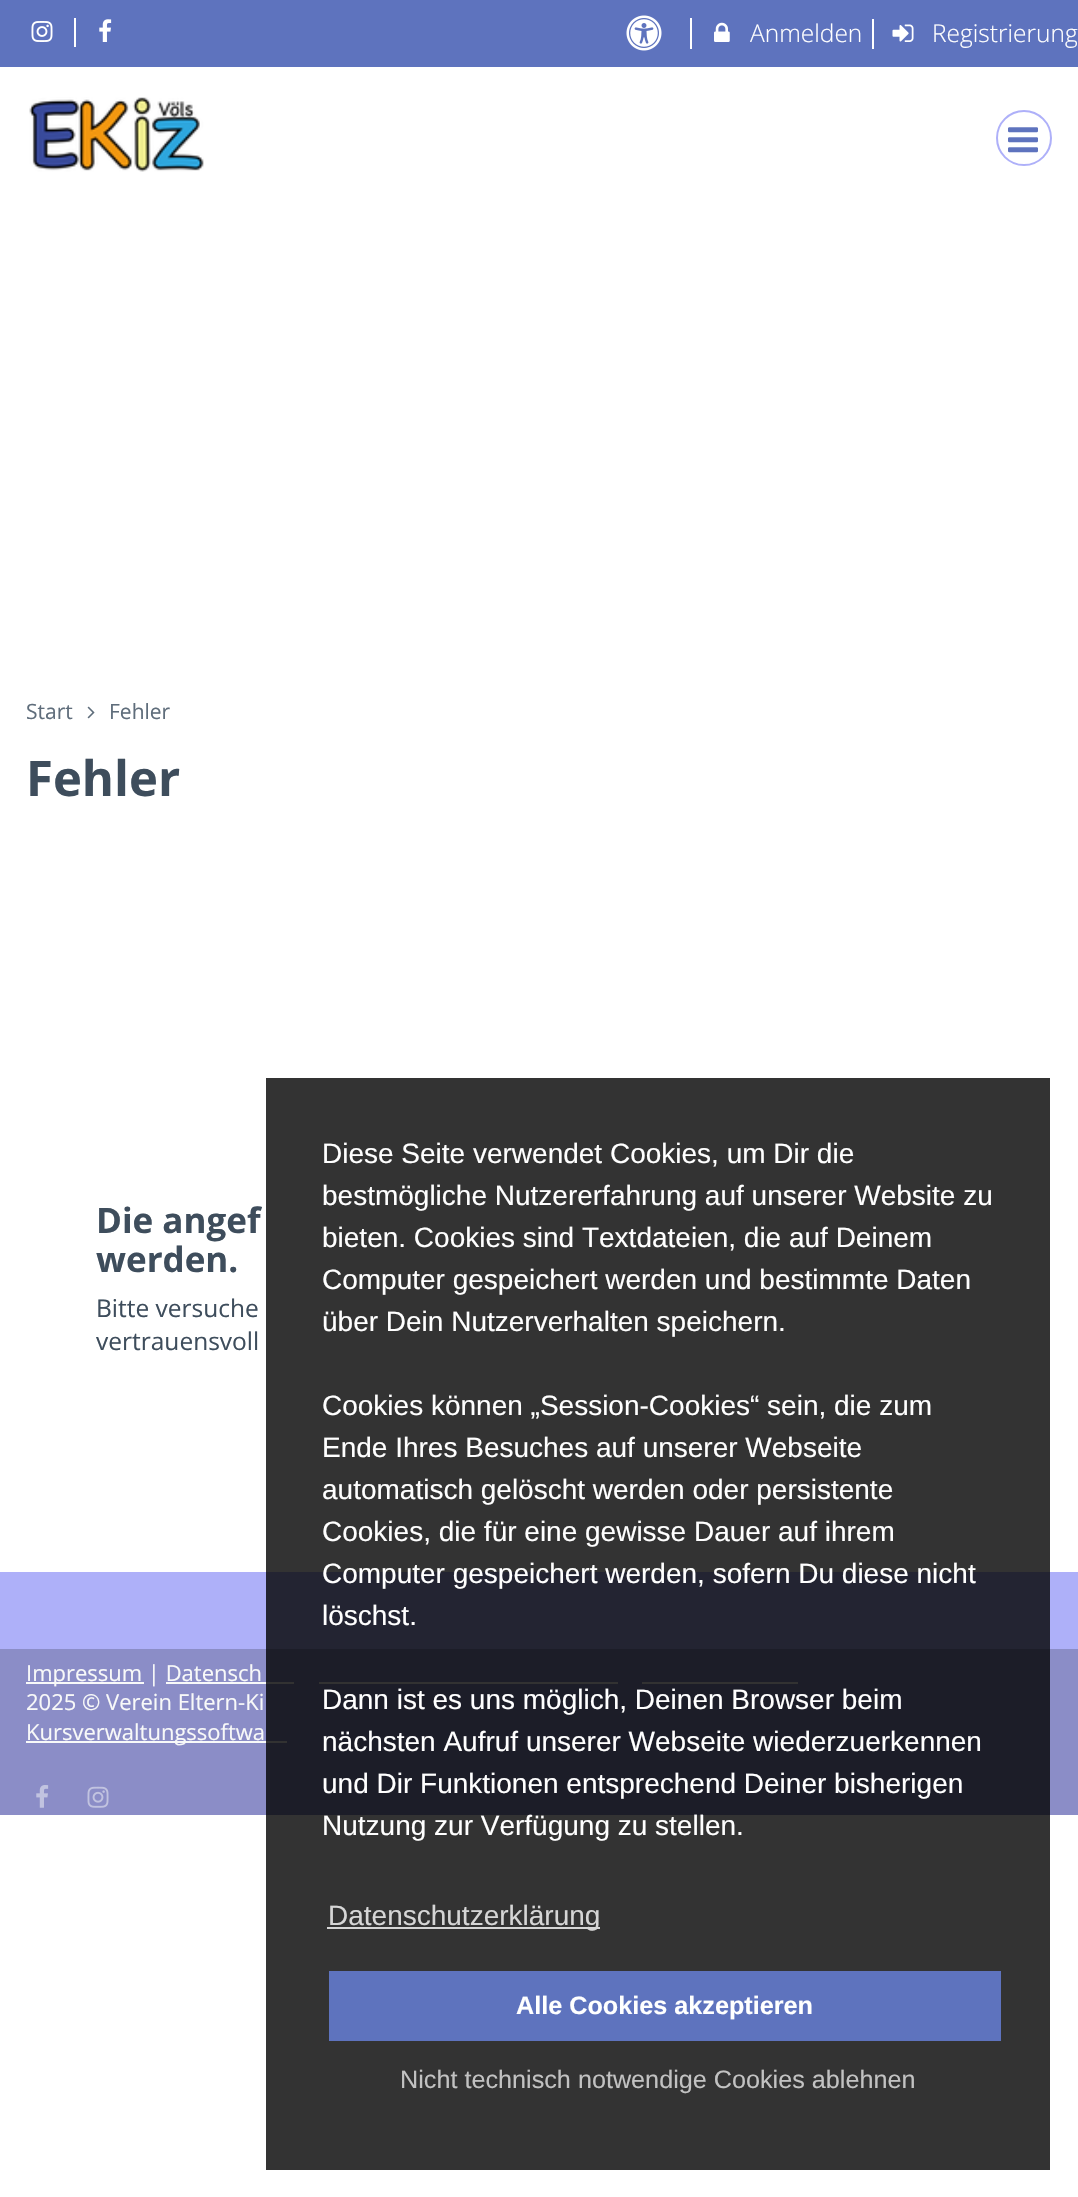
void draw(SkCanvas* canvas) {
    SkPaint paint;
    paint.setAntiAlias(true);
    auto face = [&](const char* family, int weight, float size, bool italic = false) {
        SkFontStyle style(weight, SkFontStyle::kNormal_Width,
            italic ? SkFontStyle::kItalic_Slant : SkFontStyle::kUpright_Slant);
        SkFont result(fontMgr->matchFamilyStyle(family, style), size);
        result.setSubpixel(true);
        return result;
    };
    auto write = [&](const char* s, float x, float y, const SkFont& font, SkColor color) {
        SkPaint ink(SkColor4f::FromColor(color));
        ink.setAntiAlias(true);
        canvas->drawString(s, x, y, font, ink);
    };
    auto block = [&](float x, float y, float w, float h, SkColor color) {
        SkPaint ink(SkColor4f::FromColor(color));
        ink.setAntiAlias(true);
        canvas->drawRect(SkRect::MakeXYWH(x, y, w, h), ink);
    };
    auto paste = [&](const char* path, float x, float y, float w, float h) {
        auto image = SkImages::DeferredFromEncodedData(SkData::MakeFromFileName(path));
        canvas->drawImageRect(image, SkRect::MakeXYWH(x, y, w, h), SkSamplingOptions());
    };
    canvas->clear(SK_ColorWHITE);
    block(0, 0, 1078, 67, SkColorSetRGB(94, 115, 190));
    block(74, 18, 2, 29, SK_ColorWHITE);
    paste("pic1.png", 31, 21, 22, 21);
    paste("pic2.png", 99, 19, 13, 23);
    block(690, 18, 2, 31, SK_ColorWHITE);
    paste("pic3.png", 626, 15, 36, 36);
    block(872, 19, 2, 30, SK_ColorWHITE);
    paste("pic4.png", 714, 22, 16, 20);
    auto kFont1 = face("Open Sans", 300, 24.5f);
    write("Anmelden", 750, 42, kFont1, SK_ColorWHITE);
    paste("pic5.png", 892, 24, 22, 18);
    write("Registrierung", 932, 42, kFont1, SK_ColorWHITE);
    paste("pic6.png", 29, 97, 175, 75);
    paint.setStyle(SkPaint::kStroke_Style);
    paint.setStrokeWidth(2);
    paint.setColor(SkColorSetRGB(174, 176, 249));
    canvas->drawCircle(1024, 138, 27, paint);
    paste("pic7.png", 1008, 127, 30, 26);
    auto kFont2 = face("Open Sans", 400, 21);
    write("Start", 26, 719, kFont2, SkColorSetRGB(95, 109, 123));
    paste("pic8.png", 87, 706, 8, 13);
    write("Fehler", 109, 719, kFont2, SkColorSetRGB(95, 109, 123));
    auto kFont3 = face("Open Sans", 700, 49);
    write("Fehler", 26, 796, kFont3, SkColorSetRGB(62, 77, 92));
    auto kFont4 = face("Open Sans", 700, 35);
    write("Die angef", 96, 1233, kFont4, SkColorSetRGB(62, 77, 92));
    write("werden.", 96, 1272, kFont4, SkColorSetRGB(62, 77, 92));
    auto kFont5 = face("Open Sans", 400, 24.5f);
    write("Bitte versuche", 96, 1317, kFont5, SkColorSetRGB(62, 77, 92));
    write("vertrauensvoll", 96, 1350, kFont5, SkColorSetRGB(62, 77, 92));
    block(0, 1572, 1078, 77, SkColorSetRGB(174, 176, 249));
    block(0, 1649, 1078, 166, SkColorSetRGB(139, 141, 199));
    block(26, 1682, 118, 2, SkColorSetRGB(248, 249, 249));
    auto kFont6 = face("Open Sans", 400, 22);
    write("Impressum | Datensch", 26, 1681, kFont6, SkColorSetRGB(248, 249, 249));
    block(166, 1682, 128, 2, SkColorSetRGB(248, 249, 249));
    block(319, 1682, 299, 2, SkColorSetRGB(248, 249, 249));
    block(642, 1682, 156, 2, SkColorSetRGB(248, 249, 249));
    write("2025 © Verein Eltern-Ki", 26, 1710, kFont6, SkColorSetRGB(248, 249, 249));
    block(26, 1741, 261, 2, SkColorSetRGB(248, 249, 249));
    write("Kursverwaltungssoftwa", 26, 1740, kFont6, SkColorSetRGB(248, 249, 249));
    paste("pic9.png", 36, 1785, 13, 23);
    paste("pic10.png", 87, 1786, 22, 22);
    block(266, 1078, 784, 1092, SkColorSetARGB(204, 0, 0, 0));
    auto kFont7 = face("Liberation Sans", 400, 28);
    write("Diese Seite verwendet Cookies, um Dir die", 322, 1163, kFont7, SK_ColorWHITE);
    write("bestmögliche Nutzererfahrung auf unserer Website zu", 322, 1205, kFont7, SK_ColorWHITE);
    write("bieten. Cookies sind Textdateien, die auf Deinem", 322, 1247, kFont7, SK_ColorWHITE);
    write("Computer gespeichert werden und bestimmte Daten", 322, 1289, kFont7, SK_ColorWHITE);
    write("über Dein Nutzerverhalten speichern.", 322, 1331, kFont7, SK_ColorWHITE);
    write("Cookies können „Session-Cookies“ sein, die zum", 322, 1415, kFont7, SK_ColorWHITE);
    write("Ende Ihres Besuches auf unserer Webseite", 322, 1457, kFont7, SK_ColorWHITE);
    write("automatisch gelöscht werden oder persistente", 322, 1499, kFont7, SK_ColorWHITE);
    write("Cookies, die für eine gewisse Dauer auf ihrem", 322, 1541, kFont7, SK_ColorWHITE);
    write("Computer gespeichert werden, sofern Du diese nicht", 322, 1583, kFont7, SK_ColorWHITE);
    write("löschst.", 322, 1625, kFont7, SK_ColorWHITE);
    write("Dann ist es uns möglich, Deinen Browser beim", 322, 1709, kFont7, SK_ColorWHITE);
    write("nächsten Aufruf unserer Webseite wiederzuerkennen", 322, 1751, kFont7, SK_ColorWHITE);
    write("und Dir Funktionen entsprechend Deiner bisherigen", 322, 1793, kFont7, SK_ColorWHITE);
    write("Nutzung zur Verfügung zu stellen.", 322, 1835, kFont7, SK_ColorWHITE);
    block(327, 1927, 273, 2, SkColorSetRGB(214, 214, 214));
    write("Datenschutzerklärung", 328, 1925, kFont7, SkColorSetRGB(214, 214, 214));
    block(329, 1971, 672, 70, SkColorSetRGB(94, 115, 190));
    auto kFont8 = face("Liberation Sans", 700, 25.2f);
    write("Alle Cookies akzeptieren", 516, 2014, kFont8, SK_ColorWHITE);
    auto kFont9 = face("Liberation Sans", 400, 25.2f);
    write("Nicht technisch notwendige Cookies ablehnen", 400, 2088, kFont9, SkColorSetRGB(194, 194, 194));
}
